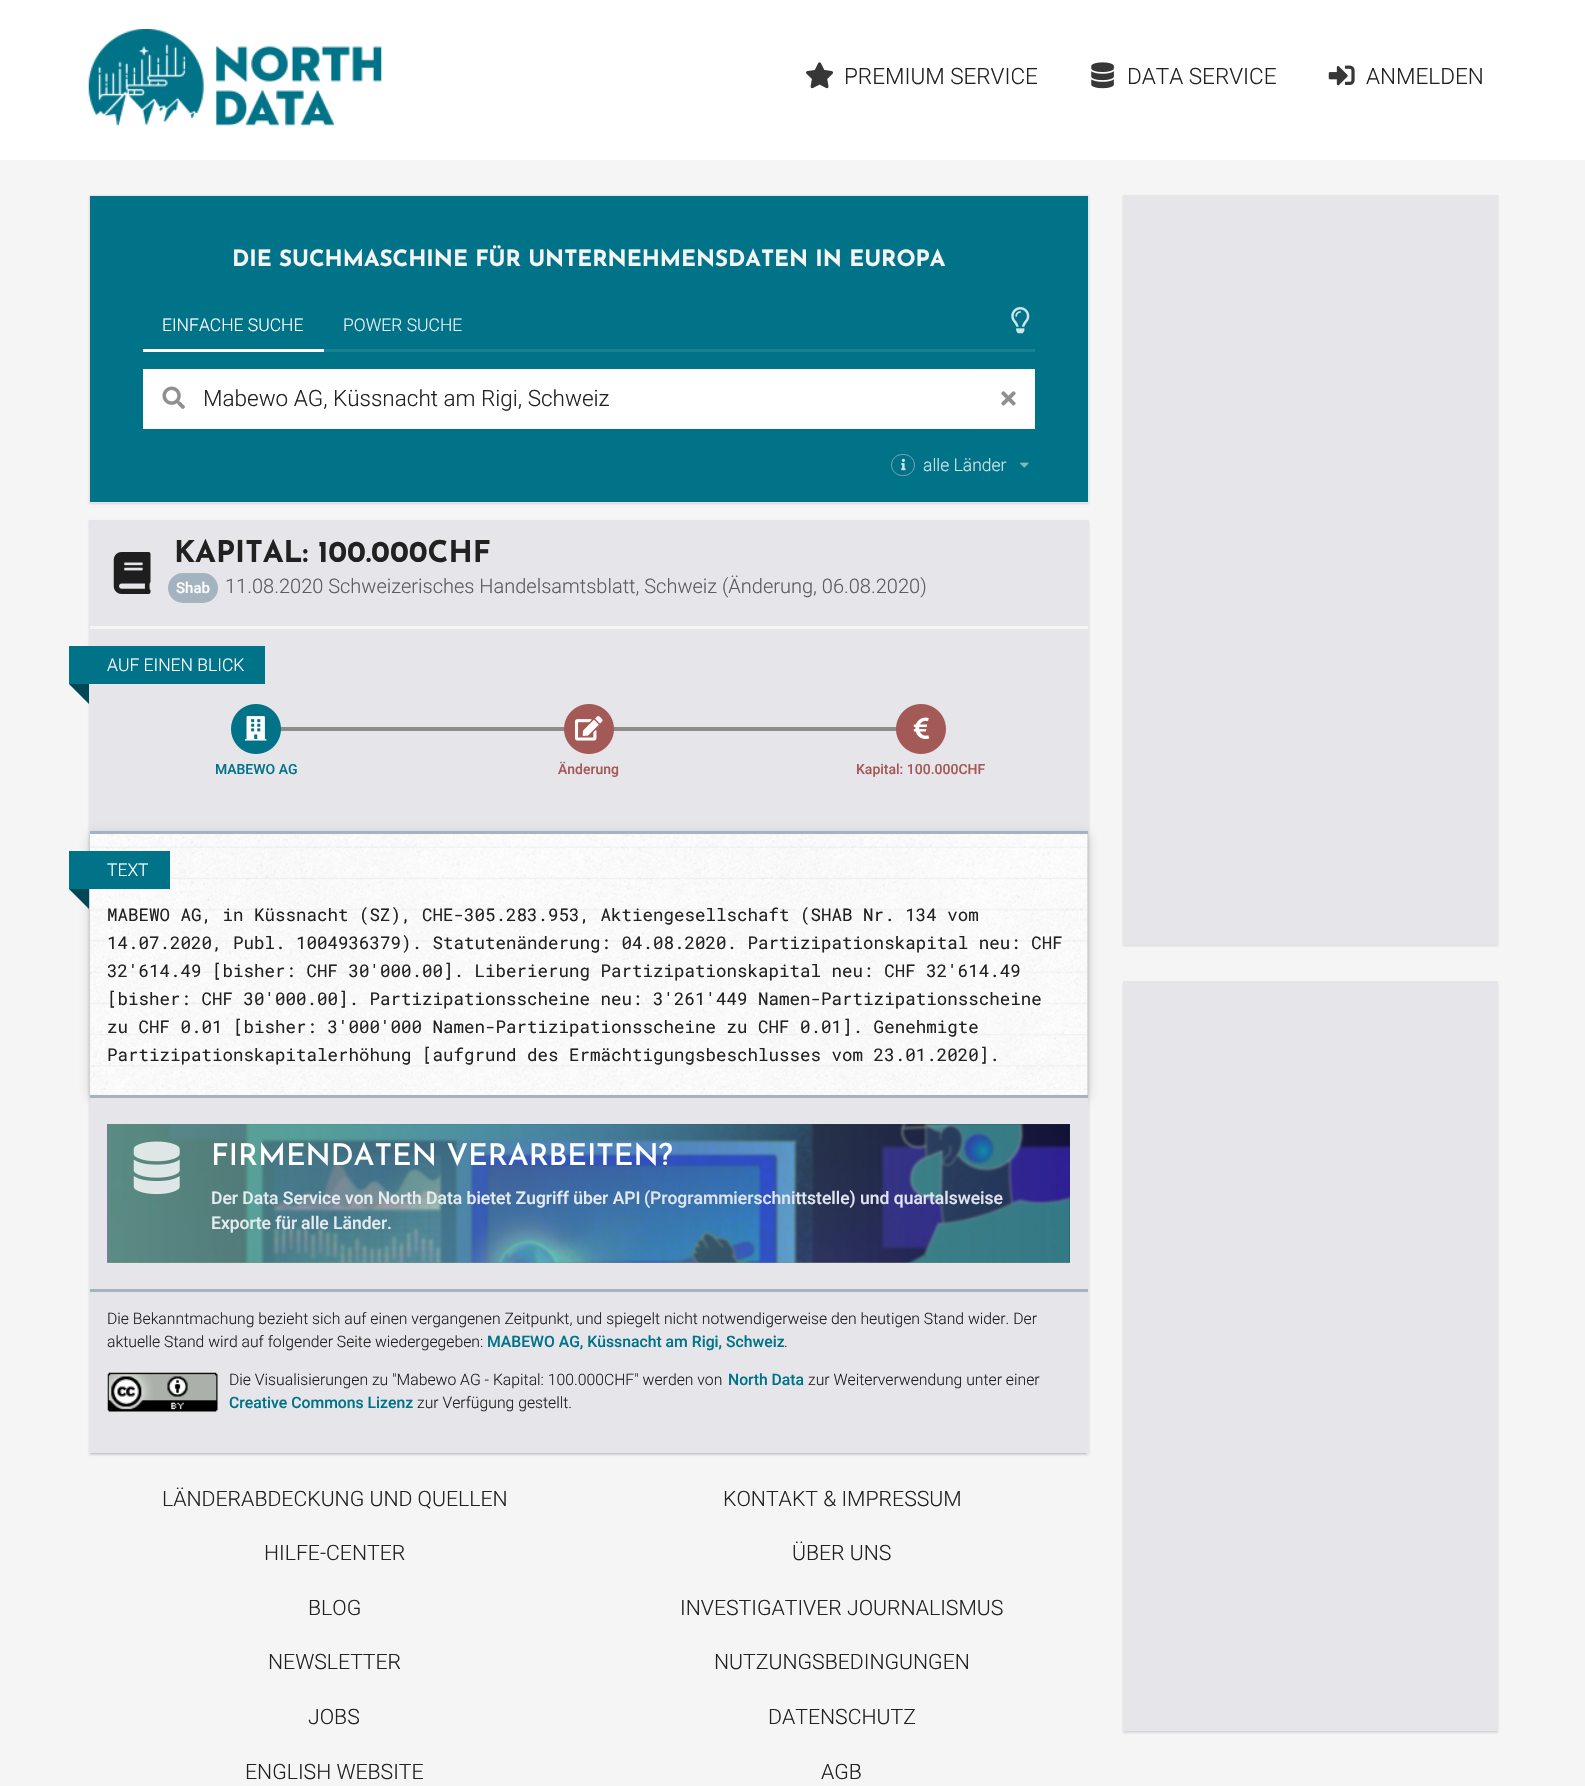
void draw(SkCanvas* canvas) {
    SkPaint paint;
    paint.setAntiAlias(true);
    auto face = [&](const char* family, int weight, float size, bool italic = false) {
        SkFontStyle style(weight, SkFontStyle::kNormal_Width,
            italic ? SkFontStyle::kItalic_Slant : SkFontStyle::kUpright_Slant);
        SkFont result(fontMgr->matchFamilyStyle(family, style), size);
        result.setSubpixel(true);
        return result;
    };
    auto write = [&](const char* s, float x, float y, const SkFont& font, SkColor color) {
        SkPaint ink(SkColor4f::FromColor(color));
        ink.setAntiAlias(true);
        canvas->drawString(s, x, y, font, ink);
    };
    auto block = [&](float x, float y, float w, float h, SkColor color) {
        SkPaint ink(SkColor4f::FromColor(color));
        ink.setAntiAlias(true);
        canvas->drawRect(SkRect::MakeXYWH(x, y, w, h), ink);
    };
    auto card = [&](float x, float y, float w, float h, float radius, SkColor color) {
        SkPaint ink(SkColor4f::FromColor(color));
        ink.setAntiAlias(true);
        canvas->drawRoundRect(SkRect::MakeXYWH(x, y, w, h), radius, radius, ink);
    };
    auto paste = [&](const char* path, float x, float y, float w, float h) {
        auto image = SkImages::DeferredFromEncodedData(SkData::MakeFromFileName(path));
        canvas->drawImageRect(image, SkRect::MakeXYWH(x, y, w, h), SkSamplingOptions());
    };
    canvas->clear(SkColorSetRGB(245, 245, 245));
    block(0, 0, 1585, 160, SK_ColorWHITE);
    paste("pic1.png", 88, 29, 294, 97);
    paste("pic2.png", 806, 62, 27, 27);
    auto kFont1 = face("Roboto", 300, 22.5f);
    write("PREMIUM SERVICE", 844, 84, kFont1, SkColorSetRGB(33, 33, 33));
    paste("pic3.png", 1091, 62, 23, 27);
    write("DATA SERVICE", 1127, 84, kFont1, SkColorSetRGB(33, 33, 33));
    paste("pic4.png", 1328, 65, 27, 21);
    write("ANMELDEN", 1366, 84, kFont1, SkColorSetRGB(33, 33, 33));
    paint.setColor(SkColorSetARGB(38, 34, 36, 38));
    paint.setMaskFilter(SkMaskFilter::MakeBlur(kNormal_SkBlurStyle, 1));
    canvas->drawRect(SkRect::MakeXYWH(89, 196, 1000, 308), paint);
    paint.setMaskFilter(nullptr);
    paint.setColor(SkColorSetRGB(0, 115, 136));
    canvas->drawRect(SkRect::MakeXYWH(89.5f, 195.5f, 999, 307), paint);
    paint.setStyle(SkPaint::kStroke_Style);
    paint.setStrokeWidth(1);
    paint.setColor(SkColorSetRGB(230, 229, 233));
    canvas->drawRect(SkRect::MakeXYWH(89.5f, 195.5f, 999, 307), paint);
    auto kFont2 = face("Josefin Sans", 100, 22.4f);
    write("DIE SUCHMASCHINE FÜR UNTERNEHMENSDATEN IN EUROPA", 232, 266, kFont2, SkColorSetRGB(245, 245, 245));
    block(324, 349, 711, 3, SkColorSetRGB(26, 129, 148));
    block(143, 349, 181, 3, SK_ColorWHITE);
    auto kFont3 = face("Roboto", 300, 17.5f);
    write("EINFACHE SUCHE", 162, 331, kFont3, SK_ColorWHITE);
    write("POWER SUCHE", 343, 331, kFont3, SkColorSetRGB(230, 241, 243));
    paste("pic5.png", 1011, 307, 19, 27);
    block(144, 370, 829, 58, SK_ColorWHITE);
    paint.setColor(SkColorSetRGB(250, 250, 250));
    canvas->drawRect(SkRect::MakeXYWH(143.5f, 369.5f, 891, 59), paint);
    paste("pic6.png", 162, 386, 23, 23);
    write("Mabewo AG, Küssnacht am Rigi, Schweiz", 203, 406, kFont1, SkColorSetRGB(33, 33, 33));
    block(973, 369, 62, 60, SK_ColorWHITE);
    paste("pic7.png", 1001, 391, 15, 15);
    paint.setStrokeWidth(0.9f);
    paint.setColor(SkColorSetRGB(130, 166, 181));
    canvas->drawRoundRect(SkRect::MakeXYWH(891.45f, 454.45f, 23.1f, 21.1f), 10.55f, 10.55f, paint);
    paste("pic8.png", 901, 458, 5, 13);
    write("alle Länder", 923, 471, kFont3, SkColorSetRGB(204, 227, 231));
    paste("pic9.png", 1020, 462, 9, 6);
    paint.setStyle(SkPaint::kFill_Style);
    paint.setColor(SkColorSetARGB(38, 34, 36, 38));
    paint.setMaskFilter(SkMaskFilter::MakeBlur(kNormal_SkBlurStyle, 1));
    canvas->drawRect(SkRect::MakeXYWH(89, 521, 1000, 934), paint);
    paint.setMaskFilter(nullptr);
    paint.setStyle(SkPaint::kStroke_Style);
    paint.setStrokeWidth(1);
    paint.setColor(SkColorSetRGB(230, 229, 233));
    canvas->drawRect(SkRect::MakeXYWH(89.5f, 520.5f, 999, 933), paint);
    block(90, 521, 998, 105, SkColorSetRGB(230, 229, 233));
    paste("pic10.png", 113, 552, 38, 42);
    auto kFont4 = face("Josefin Sans", 100, 30);
    write("KAPITAL: 100.000 CHF", 174, 562, kFont4, SkColorSetRGB(33, 33, 33));
    card(168, 573, 50, 30, 15, SkColorSetRGB(163, 179, 192));
    auto kFont5 = face("Roboto", 500, 15);
    write("Shab", 176, 593, kFont5, SK_ColorWHITE);
    auto kFont6 = face("Roboto", 300, 20);
    write("11.08.2020 Schweizerisches Handelsamtsblatt, Schweiz (Änderung, 06.08.2020)", 225, 593, kFont6, SkColorSetRGB(92, 92, 93));
    block(90, 629, 998, 202, SkColorSetRGB(230, 229, 233));
    block(90, 626, 998, 3, SkColorSetRGB(245, 245, 245));
    block(69, 646, 196, 38, SkColorSetRGB(0, 115, 136));
    write("AUF EINEN BLICK", 107, 671, kFont3, SK_ColorWHITE);
    paint.setStyle(SkPaint::kFill_Style);
    paint.setColor(SkColorSetRGB(0, 72, 85));
    canvas->drawPath(SkPathBuilder().moveTo(89, 684).lineTo(89, 704).lineTo(69, 684).close().detach(), paint);
    paste("pic11.png", 231, 704, 715, 50);
    auto kFont7 = face("Roboto", 500, 14);
    write("MABEWO AG", 215, 774, kFont7, SkColorSetRGB(0, 115, 136));
    write("Änderung", 558, 774, kFont7, SkColorSetRGB(163, 89, 86));
    write("Kapital: 100.000 CHF", 856, 774, kFont7, SkColorSetRGB(163, 89, 86));
    paint.setColor(SkColorSetARGB(38, 34, 36, 38));
    paint.setMaskFilter(SkMaskFilter::MakeBlur(kNormal_SkBlurStyle, 6));
    canvas->drawRect(SkRect::MakeXYWH(90, 834, 998, 264), paint);
    paint.setMaskFilter(nullptr);
    paint.setColor(SkColorSetARGB(31, 34, 36, 38));
    paint.setMaskFilter(SkMaskFilter::MakeBlur(kNormal_SkBlurStyle, 2.5f));
    canvas->drawRect(SkRect::MakeXYWH(90, 834, 998, 264), paint);
    paint.setMaskFilter(nullptr);
    paste("pic12.png", 90, 834, 998, 261);
    block(90, 831, 998, 3, SkColorSetRGB(163, 179, 192));
    block(69, 851, 101, 38, SkColorSetRGB(0, 115, 136));
    write("TEXT", 107, 876, kFont3, SK_ColorWHITE);
    paint.setColor(SkColorSetRGB(0, 72, 85));
    canvas->drawPath(SkPathBuilder().moveTo(89, 889).lineTo(89, 909).lineTo(69, 889).close().detach(), paint);
    auto kFont8 = face("Roboto Mono", 400, 17.5f);
    write("MABEWO AG, in Küssnacht (SZ), CHE-305.283.953, Aktiengesellschaft (SHAB Nr. 134 vom", 107, 921, kFont8, SkColorSetRGB(33, 33, 33));
    write("14.07.2020, Publ. 1004936379). Statutenänderung: 04.08.2020. Partizipationskapital neu: CHF", 107, 949, kFont8, SkColorSetRGB(33, 33, 33));
    canvas->save();
    canvas->clipRect(SkRect::MakeXYWH(108, 901, 962, 168));
    write("32'614.49 [bisher: CHF 30'000.00]. Liberierung Partizipationskapital neu: CHF 32'614.49", 107, 977, kFont8, SkColorSetRGB(33, 33, 33));
    canvas->restore();
    write("[bisher: CHF 30'000.00]. Partizipationsscheine neu: 3'261'449 Namen-Partizipationsscheine", 107, 1005, kFont8, SkColorSetRGB(33, 33, 33));
    write("zu CHF 0.01 [bisher: 3'000'000 Namen-Partizipationsscheine zu CHF 0.01]. Genehmigte", 107, 1033, kFont8, SkColorSetRGB(33, 33, 33));
    write("Partizipationskapitalerhöhung [aufgrund des Ermächtigungsbeschlusses vom 23.01.2020].", 107, 1061, kFont8, SkColorSetRGB(33, 33, 33));
    block(90, 1098, 998, 191, SkColorSetRGB(230, 229, 233));
    block(90, 1095, 998, 3, SkColorSetRGB(163, 179, 192));
    paste("pic13.png", 107, 1124, 963, 139);
    paint.setStyle(SkPaint::kStroke_Style);
    paint.setColor(SkColorSetARGB(56, 34, 36, 38));
    canvas->drawRect(SkRect::MakeXYWH(108.5f, 1124.5f, 961, 138), paint);
    paint.setStyle(SkPaint::kFill_Style);
    {
        const SkColor colors[] = {SkColorSetARGB(204, 102, 175, 139), SkColorSetARGB(26, 102, 175, 139)};
        const float stops[] = {0, 1};
        const SkPoint ends[] = {{108, 1193}, {1070, 1193}};
        paint.setShader(SkGradientShader::MakeLinear(ends, colors, stops, 2, SkTileMode::kClamp));
        paint.setAlpha(255);
    }
    canvas->drawRect(SkRect::MakeXYWH(108, 1124, 962, 139), paint);
    paste("pic14.png", 133, 1141, 47, 54);
    auto kFont9 = face("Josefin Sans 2", 100, 30);
    write("FIRMENDATEN VERARBEITEN?", 211, 1165, kFont9, SK_ColorWHITE);
    auto kFont10 = face("Roboto", 500, 17.5f);
    write("Der Data Service von North Data bietet Zugriff über API", 211, 1204, kFont10, SkColorSetRGB(229, 235, 240));
    write("(Programmierschnittstelle) und quartalsweise", 644, 1204, kFont10, SkColorSetRGB(224, 229, 237));
    write("Exporte für", 211, 1229, kFont10, SkColorSetRGB(229, 235, 240));
    write("alle Länder.", 301, 1229, kFont10, SkColorSetRGB(229, 235, 240));
    paint.setShader(nullptr);
    paint.setColor(SkColorSetARGB(38, 34, 36, 38));
    paint.setMaskFilter(SkMaskFilter::MakeBlur(kNormal_SkBlurStyle, 0.5f));
    canvas->drawRect(SkRect::MakeXYWH(91, 1293, 995, 161), paint);
    paint.setMaskFilter(nullptr);
    block(90, 1292, 998, 161, SkColorSetRGB(230, 229, 233));
    block(90, 1289, 998, 3, SkColorSetRGB(163, 179, 192));
    auto kFont11 = face("Roboto", 300, 15.75f);
    write("Die Bekanntmachung bezieht sich auf einen vergangenen Zeitpunkt, und spiegelt nicht notwendigerweise den heutigen Stand wider. Der", 107, 1324, kFont11, SkColorSetRGB(33, 33, 33));
    write("aktuelle Stand wird auf folgender Seite wiedergegeben:", 107, 1347, kFont11, SkColorSetRGB(33, 33, 33));
    auto kFont12 = face("Roboto", 500, 15.75f);
    write("MABEWO AG, Küssnacht am Rigi, Schweiz", 487, 1347, kFont12, SkColorSetRGB(0, 115, 136));
    write(".", 784, 1347, kFont11, SkColorSetRGB(33, 33, 33));
    paste("pic15.png", 107, 1372, 111, 40);
    write("Die Visualisierungen zu \"Mabewo AG - Kapital: 100.000 CHF\" werden von", 229, 1385, kFont11, SkColorSetRGB(33, 33, 33));
    write("North Data", 728, 1385, kFont12, SkColorSetRGB(0, 115, 136));
    write("zur Weiterverwendung unter einer", 808, 1385, kFont11, SkColorSetRGB(33, 33, 33));
    write("Creative Commons Lizenz", 229, 1408, kFont12, SkColorSetRGB(0, 115, 136));
    write("zur Verfügung gestellt.", 417, 1408, kFont11, SkColorSetRGB(33, 33, 33));
    auto kFont13 = face("Roboto", 300, 21.25f);
    write("LÄNDERABDECKUNG UND QUELLEN", 162, 1506, kFont13, SkColorSetRGB(33, 33, 33));
    write("HILFE-CENTER", 264, 1560, kFont13, SkColorSetRGB(33, 33, 33));
    write("BLOG", 308, 1615, kFont13, SkColorSetRGB(33, 33, 33));
    write("NEWSLETTER", 268, 1669, kFont13, SkColorSetRGB(33, 33, 33));
    write("JOBS", 308, 1724, kFont13, SkColorSetRGB(33, 33, 33));
    write("ENGLISH WEBSITE", 245, 1779, kFont13, SkColorSetRGB(33, 33, 33));
    write("KONTAKT & IMPRESSUM", 723, 1506, kFont13, SkColorSetRGB(33, 33, 33));
    write("ÜBER UNS", 792, 1560, kFont13, SkColorSetRGB(33, 33, 33));
    write("INVESTIGATIVER JOURNALISMUS", 680, 1615, kFont13, SkColorSetRGB(33, 33, 33));
    write("NUTZUNGSBEDINGUNGEN", 714, 1669, kFont13, SkColorSetRGB(33, 33, 33));
    write("DATENSCHUTZ", 768, 1724, kFont13, SkColorSetRGB(33, 33, 33));
    write("AGB", 821, 1779, kFont13, SkColorSetRGB(33, 33, 33));
    paint.setMaskFilter(SkMaskFilter::MakeBlur(kNormal_SkBlurStyle, 1));
    canvas->drawRect(SkRect::MakeXYWH(1123, 196, 375, 750), paint);
    paint.setMaskFilter(nullptr);
    block(1123, 195, 375, 750, SkColorSetRGB(230, 229, 233));
    paint.setMaskFilter(SkMaskFilter::MakeBlur(kNormal_SkBlurStyle, 1));
    canvas->drawRect(SkRect::MakeXYWH(1123, 983, 375, 750), paint);
    paint.setMaskFilter(nullptr);
    block(1123, 981, 375, 750, SkColorSetRGB(230, 229, 234));
}
